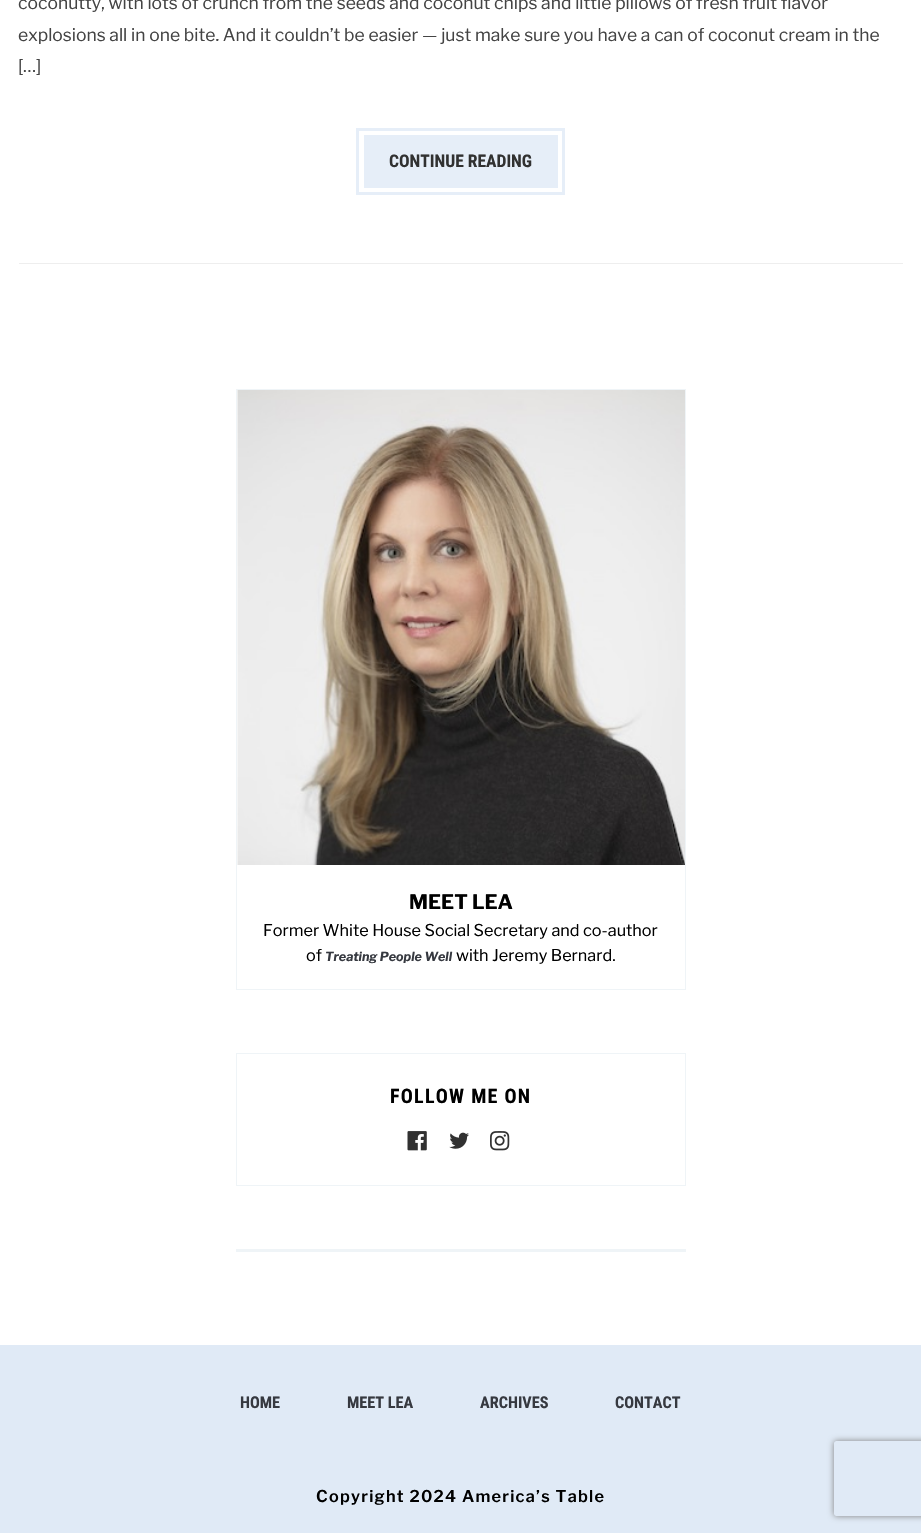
void draw(SkCanvas* canvas) {
    SkPaint paint;
    paint.setAntiAlias(true);
    auto face = [&](const char* family, int weight, float size, bool italic = false) {
        SkFontStyle style(weight, SkFontStyle::kNormal_Width,
            italic ? SkFontStyle::kItalic_Slant : SkFontStyle::kUpright_Slant);
        SkFont result(fontMgr->matchFamilyStyle(family, style), size);
        result.setSubpixel(true);
        return result;
    };
    auto write = [&](const char* s, float x, float y, const SkFont& font, SkColor color) {
        SkPaint ink(SkColor4f::FromColor(color));
        ink.setAntiAlias(true);
        canvas->drawString(s, x, y, font, ink);
    };
    auto writeSpaced = [&](const char* s, float x, float y, const SkFont& font, const SkPaint& ink, float letter, float word) {
        std::vector<SkGlyphID> glyphs(font.countText(s, strlen(s), SkTextEncoding::kUTF8));
        std::vector<float> xs(glyphs.size());
        font.textToGlyphs(s, strlen(s), SkTextEncoding::kUTF8, glyphs);
        font.getXPos(glyphs, xs, x);
        float extra = 0;
        for (size_t i = 0; i < glyphs.size(); i++) {
            xs[i] += extra;
            extra += letter + word * (glyphs[i] == font.unicharToGlyph(' '));
        }
        canvas->drawTextBlob(SkTextBlob::MakeFromPosHGlyphs(glyphs, xs, y, font), 0, 0, ink);
    };
    auto block = [&](float x, float y, float w, float h, SkColor color) {
        SkPaint ink(SkColor4f::FromColor(color));
        ink.setAntiAlias(true);
        canvas->drawRect(SkRect::MakeXYWH(x, y, w, h), ink);
    };
    auto paste = [&](const char* path, float x, float y, float w, float h) {
        auto image = SkImages::DeferredFromEncodedData(SkData::MakeFromFileName(path));
        canvas->drawImageRect(image, SkRect::MakeXYWH(x, y, w, h), SkSamplingOptions());
    };
    canvas->clear(SK_ColorWHITE);
    block(19, 263, 884, 1, SkColorSetRGB(238, 238, 238));
    auto kFont1 = face("Libre Franklin", 400, 17.5f);
    write("coconutty, with lots of crunch from the seeds and coconut chips and little pillows of fresh fruit flavor", 18, 9, kFont1, SkColorSetRGB(68, 68, 68));
    write("explosions all in one bite. And it couldn’t be easier — just make sure you have a can of coconut cream in the", 18, 41, kFont1, SkColorSetRGB(68, 68, 68));
    write("[…]", 18, 72, kFont1, SkColorSetRGB(68, 68, 68));
    block(364, 135, 194, 53, SkColorSetRGB(230, 238, 248));
    paint.setStyle(SkPaint::kStroke_Style);
    paint.setStrokeWidth(3);
    paint.setColor(SkColorSetRGB(230, 238, 248));
    canvas->drawRect(SkRect::MakeXYWH(357.5f, 129.5f, 206, 64), paint);
    auto kFont2 = face("Roboto Condensed", 700, 17.5f);
    write("CONTINUE READING", 389, 167, kFont2, SkColorSetRGB(49, 49, 49));
    paint.setStrokeWidth(1);
    paint.setColor(SkColorSetRGB(239, 244, 247));
    canvas->drawRect(SkRect::MakeXYWH(236.5f, 389.5f, 449, 600), paint);
    paste("pic1.png", 237, 390, 448, 475);
    auto kFont3 = face("Libre Franklin", 700, 20);
    write("MEET LEA", 409, 909, kFont3, SK_ColorBLACK);
    auto kFont4 = face("Libre Franklin", 400, 16.25f);
    write("Former White House Social Secretary and co-author", 263, 936, kFont4, SK_ColorBLACK);
    write("of", 306, 961, kFont4, SK_ColorBLACK);
    auto kFont5 = face("Libre Franklin", 700, 12.5f, true);
    write("Treating People Well", 325, 961, kFont5, SkColorSetRGB(54, 57, 64));
    write("with Jeremy Bernard.", 456, 961, kFont4, SK_ColorBLACK);
    canvas->drawRect(SkRect::MakeXYWH(236.5f, 1053.5f, 449, 132), paint);
    auto kFont6 = face("Roboto Condensed", 700, 20);
    paint.setStyle(SkPaint::kFill_Style);
    paint.setColor(SK_ColorBLACK);
    writeSpaced("FOLLOW ME ON", 390, 1103, kFont6, paint, 1.25f, 0);
    paste("pic2.png", 407, 1131, 20, 20);
    paste("pic3.png", 449, 1132, 20, 17);
    paste("pic4.png", 490, 1131, 20, 20);
    block(236, 1249, 450, 3, SkColorSetRGB(239, 244, 247));
    block(0, 1345, 921, 188, SkColorSetRGB(224, 234, 246));
    auto kFont7 = face("Roboto Condensed", 700, 16.25f);
    write("HOME", 240, 1408, kFont7, SkColorSetRGB(54, 57, 64));
    write("MEET LEA", 347, 1408, kFont7, SkColorSetRGB(54, 57, 64));
    write("ARCHIVES", 480, 1408, kFont7, SkColorSetRGB(54, 57, 64));
    write("CONTACT", 615, 1408, kFont7, SkColorSetRGB(54, 57, 64));
    auto kFont8 = face("Libre Franklin", 600, 16.25f);
    writeSpaced("Copyright 2024 America’s Table", 316, 1502, kFont8, paint, 1.25f, 0);
    canvas->save();
    canvas->clipPath(SkPathBuilder(SkPathFillType::kEvenOdd).moveTo(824, 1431).lineTo(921, 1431).lineTo(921, 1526).lineTo(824, 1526).close().moveTo(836.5f, 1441).lineTo(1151.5f, 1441).cubicTo(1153, 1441, 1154, 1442, 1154, 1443.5f).lineTo(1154, 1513.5f).cubicTo(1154, 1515, 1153, 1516, 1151.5f, 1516).lineTo(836.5f, 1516).cubicTo(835, 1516, 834, 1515, 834, 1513.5f).lineTo(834, 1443.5f).cubicTo(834, 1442, 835, 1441, 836.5f, 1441).close().detach(), true);
    paint.setColor(SkColorSetRGB(128, 128, 128));
    paint.setMaskFilter(SkMaskFilter::MakeBlur(kNormal_SkBlurStyle, 3));
    canvas->drawRoundRect(SkRect::MakeXYWH(834, 1441, 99, 75), 2.5f, 2.5f, paint);
    paint.setMaskFilter(nullptr);
    canvas->restore();
}
